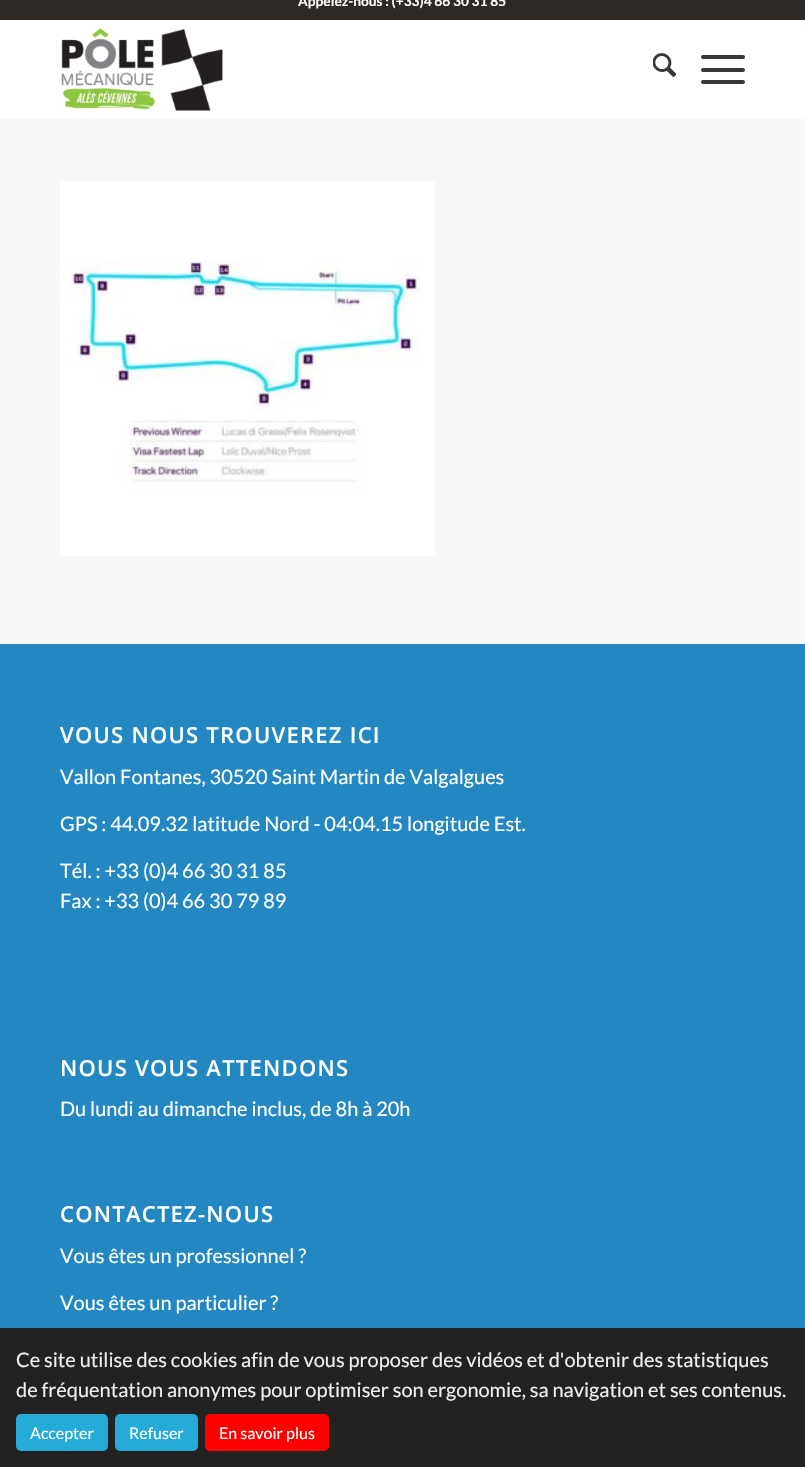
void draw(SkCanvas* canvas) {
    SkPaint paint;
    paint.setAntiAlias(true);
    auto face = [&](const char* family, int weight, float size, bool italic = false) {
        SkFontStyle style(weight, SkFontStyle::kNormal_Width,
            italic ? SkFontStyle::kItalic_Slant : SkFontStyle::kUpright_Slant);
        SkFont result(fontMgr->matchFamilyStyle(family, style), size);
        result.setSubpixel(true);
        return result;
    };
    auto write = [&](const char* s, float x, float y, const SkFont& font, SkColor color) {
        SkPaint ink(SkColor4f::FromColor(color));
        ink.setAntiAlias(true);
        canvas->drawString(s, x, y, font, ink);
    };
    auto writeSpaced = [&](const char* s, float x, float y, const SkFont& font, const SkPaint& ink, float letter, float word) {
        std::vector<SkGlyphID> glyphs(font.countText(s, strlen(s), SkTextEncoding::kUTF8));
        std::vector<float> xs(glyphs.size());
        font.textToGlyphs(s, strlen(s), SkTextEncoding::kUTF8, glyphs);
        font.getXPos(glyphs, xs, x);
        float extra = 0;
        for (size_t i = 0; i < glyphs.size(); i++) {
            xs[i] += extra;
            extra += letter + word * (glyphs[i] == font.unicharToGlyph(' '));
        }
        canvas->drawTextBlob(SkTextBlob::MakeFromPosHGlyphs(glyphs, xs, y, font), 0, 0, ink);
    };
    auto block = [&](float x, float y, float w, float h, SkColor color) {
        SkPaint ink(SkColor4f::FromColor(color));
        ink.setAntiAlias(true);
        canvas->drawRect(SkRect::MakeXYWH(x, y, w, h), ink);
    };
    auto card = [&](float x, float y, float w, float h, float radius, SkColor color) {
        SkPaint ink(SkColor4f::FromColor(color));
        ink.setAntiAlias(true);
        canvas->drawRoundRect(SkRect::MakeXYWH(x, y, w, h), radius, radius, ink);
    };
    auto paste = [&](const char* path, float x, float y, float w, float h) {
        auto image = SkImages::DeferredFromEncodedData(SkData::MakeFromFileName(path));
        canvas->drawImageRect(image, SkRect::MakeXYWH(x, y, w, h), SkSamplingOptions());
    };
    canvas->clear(SkColorSetRGB(248, 248, 248));
    block(0, 0, 805, 20, SkColorSetRGB(46, 41, 37));
    auto kFont1 = face("Lato", 700, 13.75f);
    write("Appelez-nous : (+33)4 66 30 31 85", 298, 6, kFont1, SK_ColorWHITE);
    block(0, 20, 805, 99, SK_ColorWHITE);
    paste("pic1.png", 61, 28, 162, 83);
    paste("pic2.png", 653, 53, 23, 24);
    card(701, 68, 44, 4, 2, SkColorSetRGB(56, 56, 56));
    card(701, 55, 44, 4, 2, SkColorSetRGB(56, 56, 56));
    card(701, 80, 44, 4, 2, SkColorSetRGB(56, 56, 56));
    paste("pic3.png", 60, 181, 375, 375);
    block(0, 644, 805, 684, SkColorSetRGB(35, 136, 194));
    auto kFont2 = face("Open Sans", 600, 22);
    paint.setColor(SK_ColorWHITE);
    writeSpaced("VOUS NOUS TROUVEREZ ICI", 60, 743, kFont2, paint, 1.25f, 0);
    auto kFont3 = face("Lato", 400, 20);
    write("Vallon Fontanes, 30520 Saint Martin de Valgalgues", 60, 784, kFont3, SK_ColorWHITE);
    write("GPS : 44.09.32 latitude Nord - 04:04.15 longitude Est.", 60, 831, kFont3, SK_ColorWHITE);
    write("Tél. : +33 (0)4 66 30 31 85", 60, 878, kFont3, SK_ColorWHITE);
    write("Fax : +33 (0)4 66 30 79 89", 60, 908, kFont3, SK_ColorWHITE);
    writeSpaced("NOUS VOUS ATTENDONS", 60, 1076, kFont2, paint, 1.25f, 0);
    write("Du lundi au dimanche inclus, de 8h à 20h", 60, 1116, kFont3, SK_ColorWHITE);
    writeSpaced("CONTACTEZ-NOUS", 60, 1222, kFont2, paint, 1.25f, 0);
    write("Vous êtes un professionnel ?", 60, 1263, kFont3, SK_ColorWHITE);
    write("Vous êtes un particulier ?", 60, 1310, kFont3, SK_ColorWHITE);
    block(0, 1328, 805, 139, SkColorSetRGB(34, 34, 34));
    write("Ce site utilise des cookies afin de vous proposer des vidéos et d'obtenir des statistiques", 16, 1367, kFont3, SkColorSetRGB(238, 238, 238));
    write("de fréquentation anonymes pour optimiser son ergonomie, sa navigation et ses contenus.", 16, 1397, kFont3, SkColorSetRGB(238, 238, 238));
    card(16, 1414, 92, 37, 5, SkColorSetRGB(36, 171, 216));
    auto kFont4 = face("Lato", 400, 16);
    write("Accepter", 30, 1439, kFont4, SK_ColorWHITE);
    card(115, 1414, 83, 37, 5, SkColorSetRGB(36, 171, 216));
    write("Refuser", 129, 1439, kFont4, SK_ColorWHITE);
    card(205, 1414, 124, 37, 5, SkColorSetRGB(255, 0, 0));
    write("En savoir plus", 219, 1439, kFont4, SK_ColorWHITE);
}
